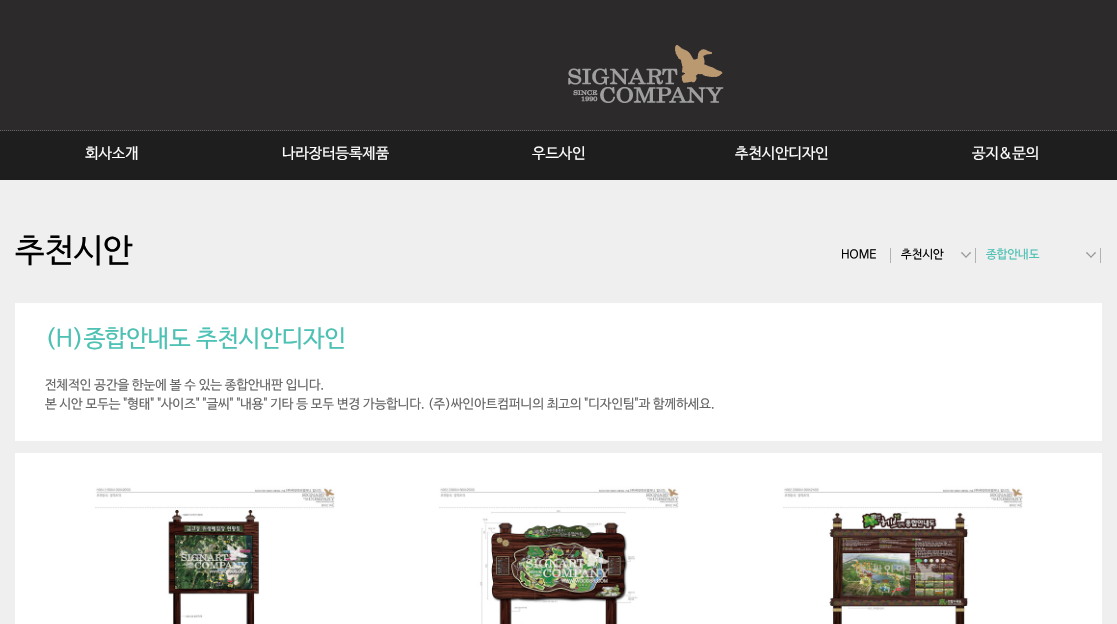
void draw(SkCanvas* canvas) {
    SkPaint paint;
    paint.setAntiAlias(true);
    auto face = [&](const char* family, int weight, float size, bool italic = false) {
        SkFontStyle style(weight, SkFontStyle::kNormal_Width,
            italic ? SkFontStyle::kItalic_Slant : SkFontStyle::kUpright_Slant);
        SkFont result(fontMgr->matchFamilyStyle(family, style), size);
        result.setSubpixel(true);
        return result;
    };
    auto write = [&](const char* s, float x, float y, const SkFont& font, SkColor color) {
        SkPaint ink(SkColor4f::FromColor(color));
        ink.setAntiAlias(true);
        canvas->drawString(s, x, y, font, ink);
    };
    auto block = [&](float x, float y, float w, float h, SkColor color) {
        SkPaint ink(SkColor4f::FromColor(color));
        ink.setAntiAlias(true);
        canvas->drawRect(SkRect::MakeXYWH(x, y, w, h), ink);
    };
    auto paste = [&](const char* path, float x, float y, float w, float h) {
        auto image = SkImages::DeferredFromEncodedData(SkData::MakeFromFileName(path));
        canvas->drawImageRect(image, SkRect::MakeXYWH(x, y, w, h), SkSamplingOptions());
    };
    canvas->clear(SkColorSetRGB(239, 239, 239));
    block(0, 131, 1117, 49, SkColorSetRGB(30, 30, 30));
    block(0, 0, 1117, 131, SkColorSetRGB(45, 42, 43));
    paint.setStyle(SkPaint::kStroke_Style);
    paint.setStrokeWidth(1);
    paint.setColor(SkColorSetRGB(102, 102, 102));
    paint.setPathEffect(SkDashPathEffect::Make({{1, 1}}, 0));
    canvas->drawPath(SkPathBuilder().moveTo(-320, 130.5f).lineTo(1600, 130.5f).detach(), paint);
    paint.setPathEffect(nullptr);
    paste("pic1.png", 568, 45, 156, 58);
    auto kFont1 = face("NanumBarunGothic", 400, 15);
    write("회사소개", 85, 158, kFont1, SK_ColorWHITE);
    write("나라장터등록제품", 282, 158, kFont1, SK_ColorWHITE);
    write("우드사인", 532, 158, kFont1, SK_ColorWHITE);
    write("추천시안디자인", 735, 158, kFont1, SK_ColorWHITE);
    write("공지&문의", 972, 158, kFont1, SK_ColorWHITE);
    auto kFont2 = face("NanumBarunGothic", 400, 33);
    write("추천시안", 15, 261, kFont2, SK_ColorBLACK);
    block(15, 303, 1087, 138, SK_ColorWHITE);
    auto kFont3 = face("NanumBarunGothic", 400, 24);
    write("(H)종합안내도 추천시안디자인", 45, 346, kFont3, SkColorSetRGB(77, 193, 180));
    auto kFont4 = face("NanumBarunGothic", 400, 13);
    write("전체적인 공간을 한눈에 볼 수 있는 종합안내판 입니다.", 45, 389, kFont4, SkColorSetRGB(102, 102, 102));
    write("본 시안 모두는 \"형태\" \"사이즈\" \"글씨\" \"내용\" 기타 등 모두 변경 가능합니다. (주)싸인아트컴퍼니의 최고의 \"디자인팀\"과 함께하세요.", 45, 408, kFont4, SkColorSetRGB(102, 102, 102));
    block(15, 453, 1087, 171, SK_ColorWHITE);
    paste("pic2.png", 95, 487, 240, 137);
    paste("pic3.png", 439, 487, 240, 137);
    paste("pic4.png", 783, 487, 240, 137);
    block(890, 248, 1, 15, SkColorSetRGB(178, 178, 178));
    auto kFont5 = face("NanumBarunGothic", 400, 12);
    write("HOME", 841, 258, kFont5, SK_ColorBLACK);
    paste("pic5.png", 961, 248, 15, 15);
    write("추천시안", 901, 258, kFont5, SK_ColorBLACK);
    paste("pic5.png", 1086, 248, 15, 15);
    write("종합안내도", 986, 258, kFont5, SkColorSetRGB(77, 193, 180));
}
